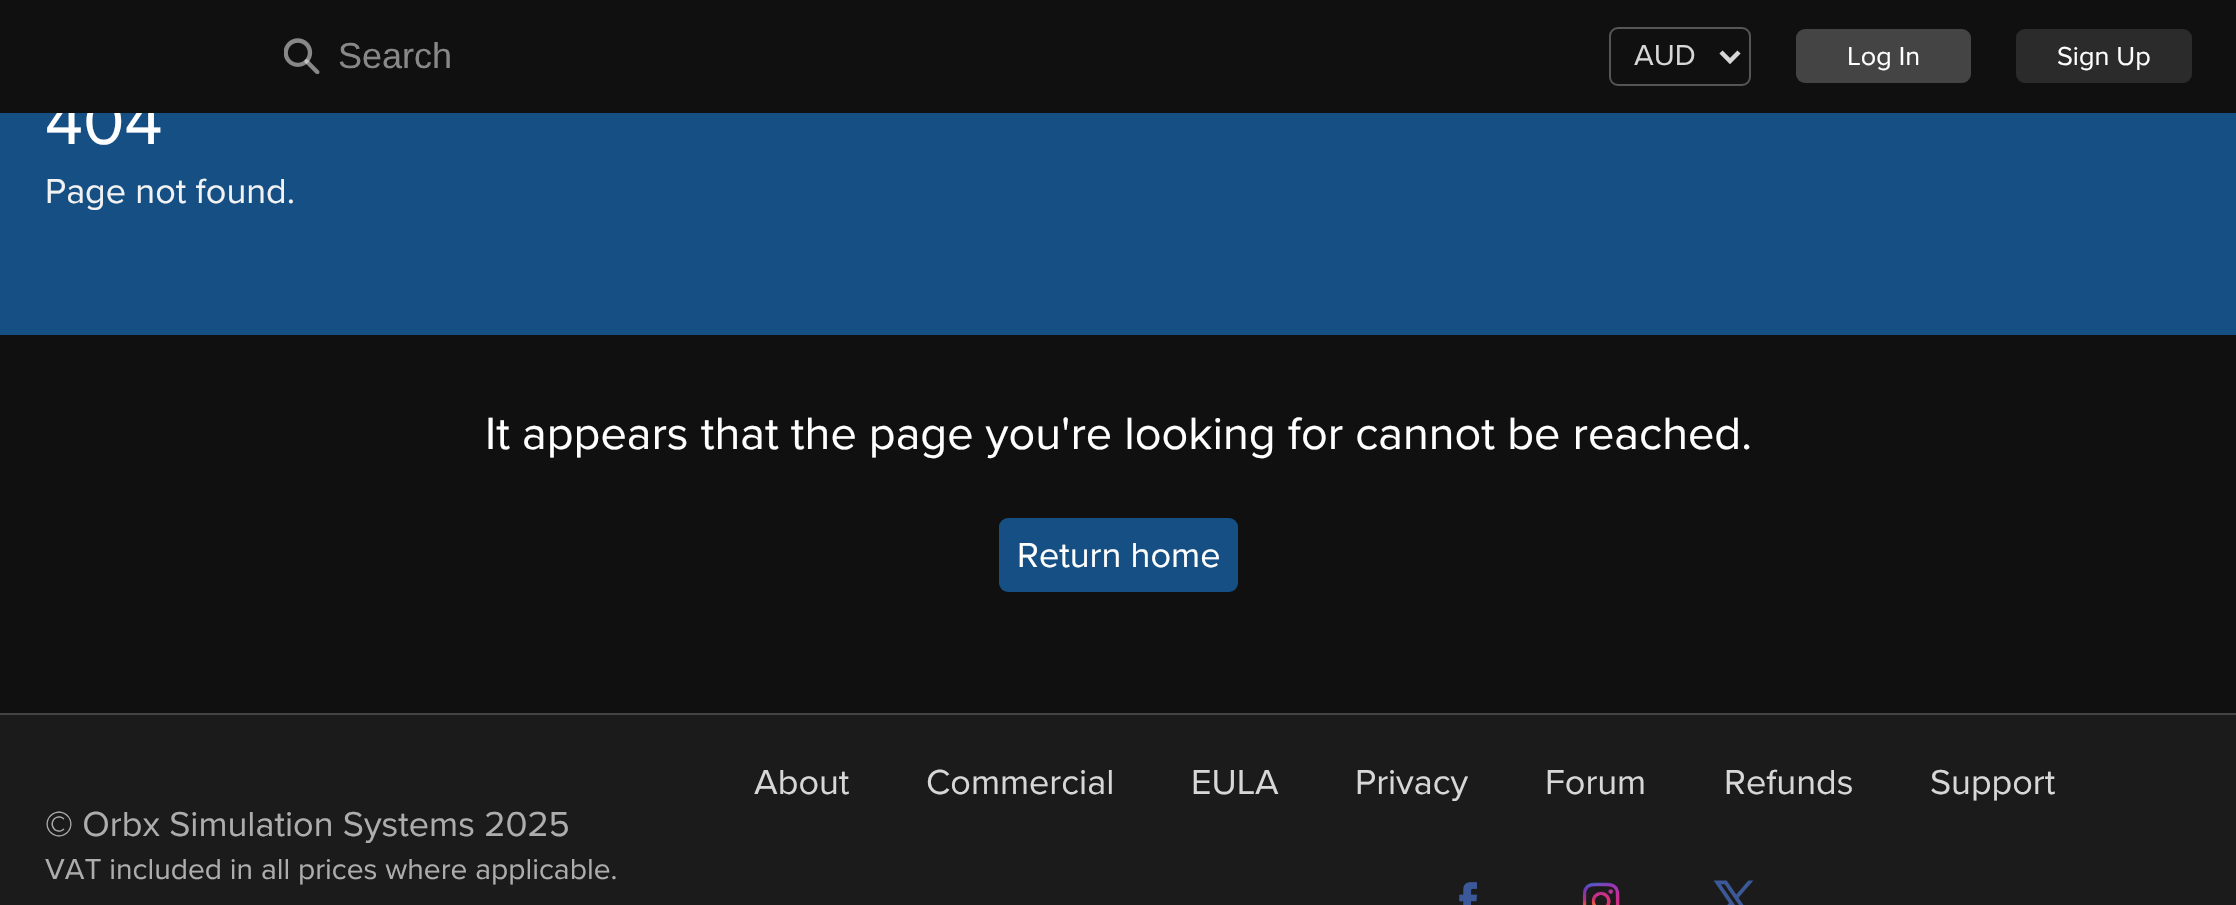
void draw(SkCanvas* canvas) {
    SkPaint paint;
    paint.setAntiAlias(true);
    auto face = [&](const char* family, int weight, float size, bool italic = false) {
        SkFontStyle style(weight, SkFontStyle::kNormal_Width,
            italic ? SkFontStyle::kItalic_Slant : SkFontStyle::kUpright_Slant);
        SkFont result(fontMgr->matchFamilyStyle(family, style), size);
        result.setSubpixel(true);
        return result;
    };
    auto write = [&](const char* s, float x, float y, const SkFont& font, SkColor color) {
        SkPaint ink(SkColor4f::FromColor(color));
        ink.setAntiAlias(true);
        canvas->drawString(s, x, y, font, ink);
    };
    auto block = [&](float x, float y, float w, float h, SkColor color) {
        SkPaint ink(SkColor4f::FromColor(color));
        ink.setAntiAlias(true);
        canvas->drawRect(SkRect::MakeXYWH(x, y, w, h), ink);
    };
    auto card = [&](float x, float y, float w, float h, float radius, SkColor color) {
        SkPaint ink(SkColor4f::FromColor(color));
        ink.setAntiAlias(true);
        canvas->drawRoundRect(SkRect::MakeXYWH(x, y, w, h), radius, radius, ink);
    };
    auto paste = [&](const char* path, float x, float y, float w, float h) {
        auto image = SkImages::DeferredFromEncodedData(SkData::MakeFromFileName(path));
        canvas->drawImageRect(image, SkRect::MakeXYWH(x, y, w, h), SkSamplingOptions());
    };
    canvas->clear(SkColorSetRGB(16, 16, 16));
    block(0, 113, 2236, 222, SkColorSetRGB(22, 79, 132));
    auto kFont1 = face("Proxima Nova", 400, 68);
    write("404", 45, 144, kFont1, SK_ColorWHITE);
    block(57, 97, 98, 16, SkColorSetRGB(16, 16, 16));
    paste("pic1.png", 284, 38, 36, 36);
    auto kFont2 = face("Liberation Sans", 400, 36);
    write("Search", 338, 68, kFont2, SkColorSetRGB(136, 136, 136));
    paint.setStyle(SkPaint::kStroke_Style);
    paint.setStrokeWidth(2);
    paint.setColor(SkColorSetRGB(85, 85, 85));
    canvas->drawRoundRect(SkRect::MakeXYWH(1610, 28, 140, 57), 8, 8, paint);
    paint.setStrokeWidth(4.5f);
    paint.setColor(SkColorSetRGB(215, 215, 215));
    canvas->drawPath(SkPathBuilder().moveTo(1721, 52).lineTo(1730, 61).lineTo(1739, 52).detach(), paint);
    auto kFont3 = face("Proxima Nova", 400, 30);
    write("AUD", 1634, 65, kFont3, SkColorSetRGB(215, 215, 215));
    card(1796, 29, 175, 54, 9, SkColorSetRGB(68, 68, 68));
    auto kFont4 = face("Proxima Nova", 400, 27);
    write("Log In", 1847, 65, kFont4, SK_ColorWHITE);
    card(2016, 29, 176, 54, 9, SkColorSetRGB(43, 43, 43));
    write("Sign Up", 2057, 65, kFont4, SK_ColorWHITE);
    auto kFont5 = face("Proxima Nova", 400, 36);
    write("Page not found.", 45, 203, kFont5, SkColorSetRGB(242, 242, 242));
    auto kFont6 = face("Proxima Nova", 400, 46.8f);
    write("It appears that the page you're looking for cannot be reached.", 485, 449, kFont6, SK_ColorWHITE);
    card(999, 518, 239, 74, 9, SkColorSetRGB(22, 79, 132));
    write("Return home", 1017, 567, kFont5, SK_ColorWHITE);
    block(0, 715, 2236, 190, SkColorSetRGB(27, 27, 27));
    block(0, 713, 2236, 2, SkColorSetRGB(68, 68, 68));
    write("About", 754, 794, kFont5, SkColorSetRGB(215, 215, 215));
    write("Commercial", 926, 794, kFont5, SkColorSetRGB(215, 215, 215));
    write("EULA", 1191, 794, kFont5, SkColorSetRGB(215, 215, 215));
    write("Privacy", 1355, 794, kFont5, SkColorSetRGB(215, 215, 215));
    write("Forum", 1545, 794, kFont5, SkColorSetRGB(215, 215, 215));
    write("Refunds", 1724, 794, kFont5, SkColorSetRGB(215, 215, 215));
    write("Support", 1930, 794, kFont5, SkColorSetRGB(215, 215, 215));
    paste("pic2.png", 1459, 882, 18, 23);
    paste("pic3.png", 1582, 882, 38, 23);
    paste("pic4.png", 1713, 880, 41, 25);
    write("© Orbx Simulation Systems 2025", 45, 836, kFont5, SkColorSetRGB(173, 173, 173));
    write("VAT included in all prices where applicable.", 45, 879, kFont3, SkColorSetRGB(173, 173, 173));
}
